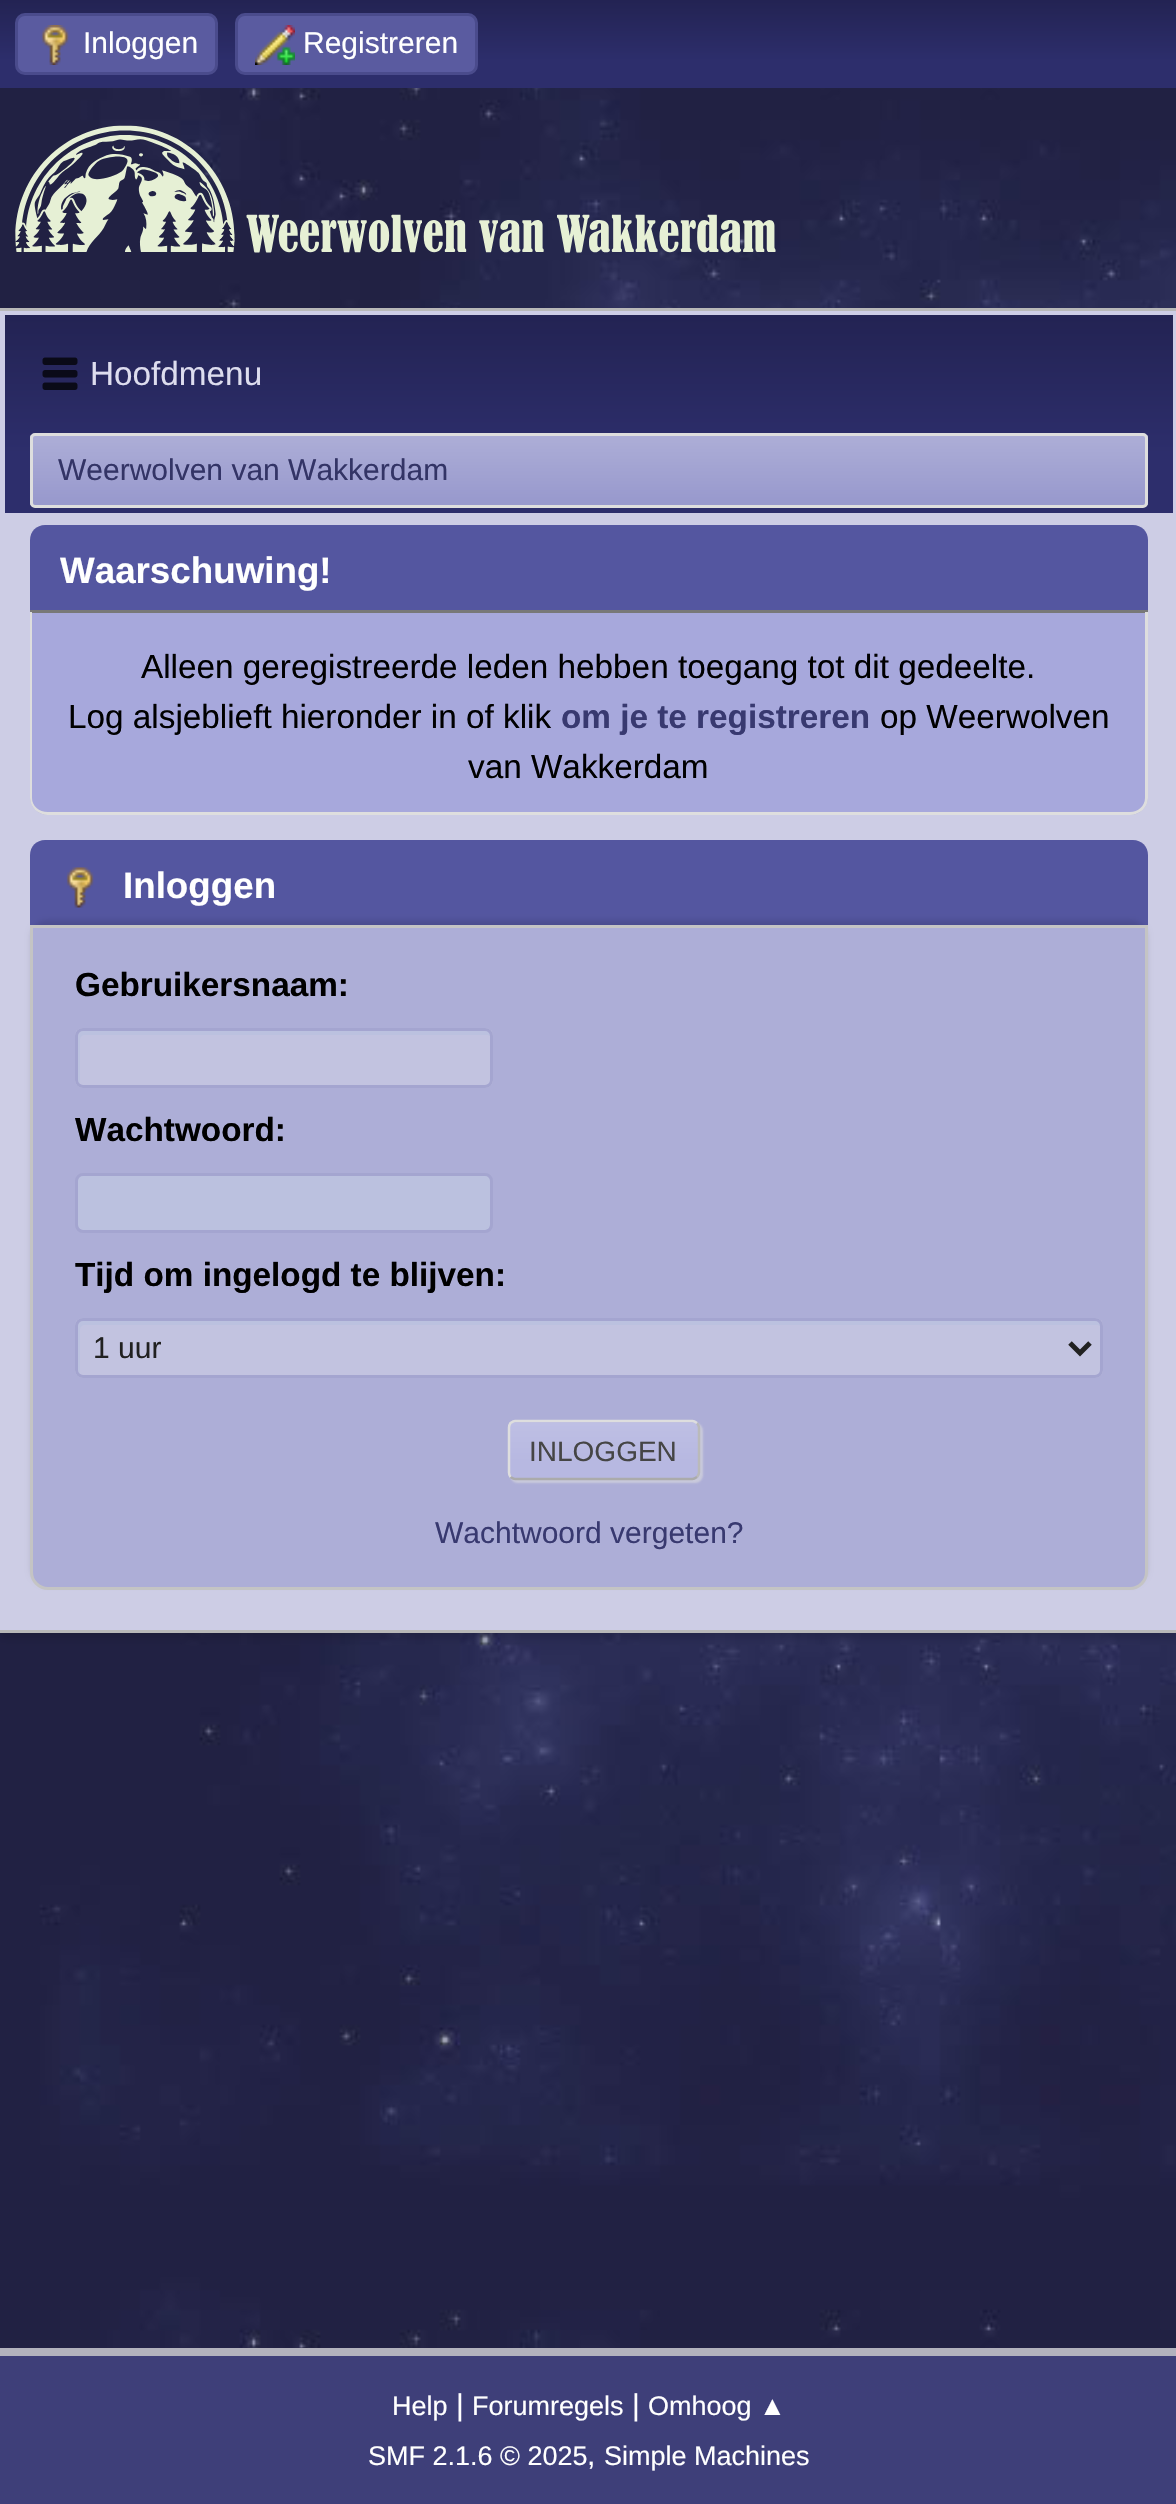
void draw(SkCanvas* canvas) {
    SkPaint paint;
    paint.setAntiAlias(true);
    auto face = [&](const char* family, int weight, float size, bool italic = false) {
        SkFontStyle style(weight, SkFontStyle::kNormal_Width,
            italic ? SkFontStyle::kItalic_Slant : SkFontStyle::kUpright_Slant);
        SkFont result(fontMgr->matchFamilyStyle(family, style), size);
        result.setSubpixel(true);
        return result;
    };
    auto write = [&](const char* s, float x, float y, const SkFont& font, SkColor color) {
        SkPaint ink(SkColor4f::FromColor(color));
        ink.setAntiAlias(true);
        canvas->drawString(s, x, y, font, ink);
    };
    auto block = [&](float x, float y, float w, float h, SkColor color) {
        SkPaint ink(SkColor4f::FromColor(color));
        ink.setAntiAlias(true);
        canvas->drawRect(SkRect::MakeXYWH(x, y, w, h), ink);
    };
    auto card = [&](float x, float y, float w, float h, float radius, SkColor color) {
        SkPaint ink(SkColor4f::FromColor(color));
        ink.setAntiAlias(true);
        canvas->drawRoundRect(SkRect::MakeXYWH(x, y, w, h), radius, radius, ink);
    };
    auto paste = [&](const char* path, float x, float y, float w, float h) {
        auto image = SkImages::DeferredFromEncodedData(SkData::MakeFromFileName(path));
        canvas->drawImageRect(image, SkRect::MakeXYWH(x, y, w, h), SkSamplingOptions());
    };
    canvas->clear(SK_ColorWHITE);
    paste("pic1.png", 0, 88, 1176, 2260);
    {
        const SkColor colors[] = {SkColorSetRGB(35, 35, 83), SkColorSetRGB(45, 46, 108)};
        const float stops[] = {0, 0.7f};
        const SkPoint ends[] = {{589, 0}, {589, 88}};
        paint.setShader(SkGradientShader::MakeLinear(ends, colors, stops, 2, SkTileMode::kClamp));
        paint.setAlpha(255);
    }
    canvas->drawRect(SkRect::MakeXYWH(0, 0, 1176, 88), paint);
    paint.setShader(nullptr);
    paint.setColor(SkColorSetRGB(90, 91, 160));
    canvas->drawRoundRect(SkRect::MakeXYWH(16.5f, 14.5f, 200, 59), 8.5f, 8.5f, paint);
    paint.setStyle(SkPaint::kStroke_Style);
    paint.setStrokeWidth(3);
    paint.setColor(SkColorSetRGB(74, 75, 140));
    canvas->drawRoundRect(SkRect::MakeXYWH(16.5f, 14.5f, 200, 59), 8.5f, 8.5f, paint);
    paste("pic2.png", 41, 25, 28, 40);
    auto kFont1 = face("Liberation Sans", 400, 30);
    write("Inloggen", 83, 53, kFont1, SK_ColorWHITE);
    paint.setStyle(SkPaint::kFill_Style);
    paint.setColor(SkColorSetRGB(90, 91, 160));
    canvas->drawRoundRect(SkRect::MakeXYWH(236.5f, 14.5f, 240, 59), 8.5f, 8.5f, paint);
    paint.setStyle(SkPaint::kStroke_Style);
    paint.setColor(SkColorSetRGB(74, 75, 140));
    canvas->drawRoundRect(SkRect::MakeXYWH(236.5f, 14.5f, 240, 59), 8.5f, 8.5f, paint);
    paste("pic3.png", 255, 25, 40, 40);
    write("Registreren", 303, 53, kFont1, SK_ColorWHITE);
    paste("pic4.png", 15, 125, 761, 128);
    paint.setStyle(SkPaint::kFill_Style);
    paint.setColor(SkColorSetARGB(36, 0, 0, 0));
    paint.setMaskFilter(SkMaskFilter::MakeBlur(kNormal_SkBlurStyle, 4));
    canvas->drawRect(SkRect::MakeXYWH(0, 313, 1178, 1325), paint);
    paint.setMaskFilter(nullptr);
    block(0, 311, 1176, 1319, SkColorSetRGB(205, 205, 229));
    block(0, 308, 1176, 3, SkColorSetRGB(184, 184, 184));
    block(0, 1630, 1176, 3, SkColorSetRGB(184, 184, 184));
    {
        const SkColor colors[] = {SkColorSetRGB(35, 35, 83), SkColorSetRGB(45, 46, 108)};
        const float stops[] = {0, 0.7f};
        const SkPoint ends[] = {{589, 315}, {589, 513}};
        paint.setShader(SkGradientShader::MakeLinear(ends, colors, stops, 2, SkTileMode::kClamp));
        paint.setAlpha(255);
    }
    canvas->drawRect(SkRect::MakeXYWH(5, 315, 1168, 198), paint);
    paste("pic5.png", 42, 357, 36, 33);
    auto kFont2 = face("Liberation Sans", 400, 33.3f);
    write("Hoofdmenu", 90, 385, kFont2, SkColorSetRGB(221, 221, 238));
    canvas->save();
    canvas->clipPath(SkPathBuilder().moveTo(35, 433).lineTo(1143, 433).cubicTo(1146, 433, 1148, 435, 1148, 438).lineTo(1148, 503).cubicTo(1148, 506, 1146, 508, 1143, 508).lineTo(35, 508).cubicTo(32, 508, 30, 506, 30, 503).lineTo(30, 438).cubicTo(30, 435, 32, 433, 35, 433).close().detach(), true);
    {
        const SkColor colors[] = {SkColorSetRGB(173, 174, 215), SkColorSetRGB(152, 153, 205)};
        const float stops[] = {0, 0.95f};
        const SkPoint ends[] = {{589, 435}, {589, 505}};
        paint.setShader(SkGradientShader::MakeLinear(ends, colors, stops, 2, SkTileMode::kClamp));
        paint.setAlpha(255);
    }
    canvas->drawRect(SkRect::MakeXYWH(30, 435, 1118, 70), paint);
    canvas->restore();
    paint.setStyle(SkPaint::kStroke_Style);
    paint.setShader(nullptr);
    paint.setColor(SkColorSetRGB(222, 222, 222));
    canvas->drawRoundRect(SkRect::MakeXYWH(31.5f, 434.5f, 1115, 72), 3.5f, 3.5f, paint);
    write("Weerwolven van Wakkerdam", 58, 480, kFont1, SkColorSetRGB(51, 52, 102));
    paint.setStyle(SkPaint::kFill_Style);
    paint.setColor(SkColorSetRGB(84, 86, 160));
    canvas->drawPath(SkPathBuilder().moveTo(45, 525).lineTo(1133, 525).cubicTo(1141.5f, 525, 1148, 531.5f, 1148, 540).lineTo(1148, 613).lineTo(30, 613).lineTo(30, 540).cubicTo(30, 531.5f, 36.5f, 525, 45, 525).close().detach(), paint);
    block(30, 610, 1118, 3, SkColorSetRGB(120, 120, 120));
    auto kFont3 = face("Liberation Sans", 700, 36.75f);
    write("Waarschuwing!", 60, 583, kFont3, SK_ColorWHITE);
    paint.setColor(SkColorSetRGB(167, 168, 220));
    canvas->drawPath(SkPathBuilder().moveTo(30, 613).lineTo(1148, 613).lineTo(1148, 797).cubicTo(1148, 807, 1140, 815, 1130, 815).lineTo(48, 815).cubicTo(38, 815, 30, 807, 30, 797).close().detach(), paint);
    paint.setColor(SkColorSetRGB(222, 222, 222));
    canvas->drawPath(SkPathBuilder(SkPathFillType::kEvenOdd).moveTo(30, 612).lineTo(1148, 612).lineTo(1148, 798).cubicTo(1148, 807, 1140, 815, 1130, 815).lineTo(48, 815).cubicTo(38, 815, 30, 807, 30, 798).close().moveTo(32, 612).lineTo(1145, 612).lineTo(1145, 798).cubicTo(1145, 806, 1138, 812, 1130, 812).lineTo(48, 812).cubicTo(39, 812, 32, 806, 32, 798).close().detach(), paint);
    write("Alleen geregistreerde leden hebben toegang tot dit gedeelte.", 141, 678, kFont2, SK_ColorBLACK);
    write("Log alsjeblieft hieronder in of klik", 68, 728, kFont2, SK_ColorBLACK);
    auto kFont4 = face("Liberation Sans", 700, 33.3f);
    write("om je te registreren", 561, 728, kFont4, SkColorSetRGB(56, 57, 112));
    write("op Weerwolven", 880, 728, kFont2, SK_ColorBLACK);
    write("van Wakkerdam", 468, 778, kFont2, SK_ColorBLACK);
    paint.setColor(SkColorSetRGB(84, 86, 160));
    canvas->drawPath(SkPathBuilder().moveTo(45, 840).lineTo(1133, 840).cubicTo(1141.5f, 840, 1148, 846.5f, 1148, 855).lineTo(1148, 928).lineTo(30, 928).lineTo(30, 855).cubicTo(30, 846.5f, 36.5f, 840, 45, 840).close().detach(), paint);
    paste("pic6.png", 66, 867, 28, 41);
    write("Inloggen", 123, 898, kFont3, SK_ColorWHITE);
    paint.setColor(SkColorSetARGB(26, 0, 0, 0));
    paint.setMaskFilter(SkMaskFilter::MakeBlur(kNormal_SkBlurStyle, 2.5f));
    canvas->drawRoundRect(SkRect::MakeXYWH(30, 920, 1118, 665), 18, 18, paint);
    paint.setMaskFilter(nullptr);
    paint.setColor(SkColorSetRGB(173, 174, 215));
    canvas->drawPath(SkPathBuilder().moveTo(31.5f, 926.5f).lineTo(1146.5f, 926.5f).lineTo(1146.5f, 1572).cubicTo(1146.5f, 1581, 1139, 1588.5f, 1130, 1588.5f).lineTo(48, 1588.5f).cubicTo(39, 1588.5f, 31.5f, 1581, 31.5f, 1572).close().detach(), paint);
    paint.setStyle(SkPaint::kStroke_Style);
    paint.setColor(SkColorSetRGB(196, 196, 196));
    canvas->drawPath(SkPathBuilder().moveTo(31.5f, 926.5f).lineTo(1146.5f, 926.5f).lineTo(1146.5f, 1572).cubicTo(1146.5f, 1581, 1139, 1588.5f, 1130, 1588.5f).lineTo(48, 1588.5f).cubicTo(39, 1588.5f, 31.5f, 1581, 31.5f, 1572).close().detach(), paint);
    write("Gebruikersnaam:", 75, 996, kFont4, SK_ColorBLACK);
    card(75, 1028, 418, 60, 8, SkColorSetRGB(194, 195, 224));
    paint.setStyle(SkPaint::kFill_Style);
    paint.setColor(SkColorSetRGB(187, 193, 223));
    canvas->drawPath(SkPathBuilder().moveTo(85, 1035).lineTo(488, 1035).lineTo(490, 1036).lineTo(490, 1035).cubicTo(490, 1032, 488, 1030, 485, 1030).lineTo(83, 1030).cubicTo(80, 1030, 78, 1032, 78, 1035).lineTo(78, 1080).cubicTo(78, 1082, 79, 1083, 80, 1084).lineTo(80, 1040).cubicTo(80, 1037, 82, 1035, 85, 1035).close().detach(), paint);
    paint.setStyle(SkPaint::kStroke_Style);
    paint.setColor(SkColorSetRGB(164, 165, 208));
    canvas->drawRoundRect(SkRect::MakeXYWH(76.5f, 1029.5f, 415, 57), 6.5f, 6.5f, paint);
    write("Wachtwoord:", 75, 1141, kFont4, SK_ColorBLACK);
    paint.setStyle(SkPaint::kFill_Style);
    paint.setColor(SkColorSetRGB(187, 193, 223));
    canvas->drawPath(SkPathBuilder().moveTo(83, 1175).cubicTo(80, 1175, 78, 1177, 78, 1180).lineTo(78, 1225).cubicTo(78, 1227, 79, 1228, 80, 1229).cubicTo(81, 1230, 82, 1230, 83, 1230).lineTo(485, 1230).cubicTo(488, 1230, 490, 1228, 490, 1225).lineTo(490, 1180).cubicTo(490, 1177, 488, 1175, 485, 1175).close().detach(), paint);
    paint.setStyle(SkPaint::kStroke_Style);
    paint.setColor(SkColorSetRGB(164, 165, 208));
    canvas->drawRoundRect(SkRect::MakeXYWH(76.5f, 1174.5f, 415, 57), 6.5f, 6.5f, paint);
    write("Tijd om ingelogd te blijven:", 75, 1286, kFont4, SK_ColorBLACK);
    card(75, 1318, 1028, 60, 8, SkColorSetRGB(194, 195, 224));
    paint.setStyle(SkPaint::kFill_Style);
    paint.setColor(SkColorSetRGB(187, 193, 223));
    canvas->drawPath(SkPathBuilder().moveTo(85, 1325).lineTo(1098, 1325).lineTo(1100, 1326).lineTo(1100, 1325).cubicTo(1100, 1322, 1098, 1320, 1095, 1320).lineTo(83, 1320).cubicTo(80, 1320, 78, 1322, 78, 1325).lineTo(78, 1370).cubicTo(78, 1372, 79, 1373, 80, 1374).lineTo(80, 1330).cubicTo(80, 1327, 82, 1325, 85, 1325).close().detach(), paint);
    paint.setStyle(SkPaint::kStroke_Style);
    paint.setColor(SkColorSetRGB(164, 165, 208));
    canvas->drawRoundRect(SkRect::MakeXYWH(76.5f, 1319.5f, 1025, 57), 6.5f, 6.5f, paint);
    paint.setStrokeWidth(5);
    paint.setColor(SkColorSetRGB(33, 33, 33));
    canvas->drawPath(SkPathBuilder().moveTo(1070, 1343).lineTo(1080, 1353).lineTo(1090, 1343).detach(), paint);
    write("1 uur", 93, 1358, kFont1, SkColorSetRGB(33, 33, 33));
    paint.setStyle(SkPaint::kFill_Style);
    paint.setColor(SkColorSetARGB(145, 221, 221, 221));
    paint.setMaskFilter(SkMaskFilter::MakeBlur(kNormal_SkBlurStyle, 1));
    canvas->drawRoundRect(SkRect::MakeXYWH(510, 1423, 193, 60), 8, 8, paint);
    paint.setMaskFilter(nullptr);
    canvas->save();
    canvas->clipPath(SkPathBuilder().moveTo(516, 1420).lineTo(692, 1420).cubicTo(696.5f, 1420, 700, 1423.5f, 700, 1428).lineTo(700, 1472).cubicTo(700, 1476.5f, 696.5f, 1480, 692, 1480).lineTo(516, 1480).cubicTo(511.5f, 1480, 508, 1476.5f, 508, 1472).lineTo(508, 1428).cubicTo(508, 1423.5f, 511.5f, 1420, 516, 1420).close().detach(), true);
    {
        const SkColor colors[] = {SkColorSetRGB(190, 191, 228), SkColorSetRGB(183, 184, 225)};
        const float stops[] = {0, 0.7f};
        const SkPoint ends[] = {{604, 1368}, {604, 1423}};
        paint.setShader(SkGradientShader::MakeLinear(ends, colors, stops, 2, SkTileMode::kClamp));
        paint.setAlpha(255);
    }
    canvas->drawRect(SkRect::MakeXYWH(508, 1420, 192, 3), paint);
    {
        const SkColor colors[] = {SkColorSetRGB(190, 191, 228), SkColorSetRGB(183, 184, 225)};
        const float stops[] = {0, 0.7f};
        const SkPoint ends[] = {{604, 1423}, {604, 1478}};
        paint.setShader(SkGradientShader::MakeLinear(ends, colors, stops, 2, SkTileMode::kClamp));
        paint.setAlpha(255);
    }
    canvas->drawRect(SkRect::MakeXYWH(508, 1423, 192, 55), paint);
    canvas->restore();
    paint.setStyle(SkPaint::kStroke_Style);
    paint.setStrokeWidth(2.5f);
    paint.setShader(nullptr);
    paint.setColor(SkColorSetRGB(186, 186, 186));
    canvas->drawPath(SkPathBuilder().moveTo(697, 1423).cubicTo(698, 1424.5f, 699, 1426, 699, 1427.5f).lineTo(699, 1472.5f).cubicTo(699, 1474, 698, 1475.5f, 697, 1477).detach(), paint);
    paint.setColor(SkColorSetRGB(171, 171, 171));
    canvas->drawPath(SkPathBuilder().moveTo(697, 1477).cubicTo(695.5f, 1478, 694, 1479, 692.5f, 1479).lineTo(515, 1479).cubicTo(513.5f, 1479, 512, 1478, 510.5f, 1477).detach(), paint);
    paint.setColor(SkColorSetRGB(222, 222, 222));
    canvas->drawPath(SkPathBuilder().moveTo(510.5f, 1477).cubicTo(509.5f, 1475.5f, 509, 1474, 509, 1472.5f).lineTo(509, 1427.5f).cubicTo(509, 1426, 509.5f, 1424.5f, 510.5f, 1423).cubicTo(512, 1422, 513.5f, 1421, 515, 1421).lineTo(692.5f, 1421).cubicTo(694, 1421, 695.5f, 1422, 697, 1423).detach(), paint);
    auto kFont5 = face("Liberation Sans", 400, 28);
    write("INLOGGEN", 529, 1461, kFont5, SkColorSetRGB(69, 69, 69));
    write("Wachtwoord vergeten?", 435, 1543, kFont1, SkColorSetRGB(56, 57, 112));
    block(0, 2356, 1176, 148, SkColorSetRGB(62, 63, 121));
    block(0, 2348, 1176, 8, SkColorSetRGB(178, 178, 189));
    auto kFont6 = face("Liberation Sans", 400, 27);
    write("Help", 392, 2415, kFont6, SK_ColorWHITE);
    write("|", 456, 2415, kFont1, SK_ColorWHITE);
    write("Forumregels", 472, 2415, kFont6, SK_ColorWHITE);
    write("|", 632, 2415, kFont1, SK_ColorWHITE);
    write("Omhoog ▲", 648, 2415, kFont6, SK_ColorWHITE);
    write("SMF 2.1.6 © 2025", 368, 2465, kFont6, SK_ColorWHITE);
    write(",", 587, 2465, kFont1, SK_ColorWHITE);
    write("Simple Machines", 604, 2465, kFont6, SK_ColorWHITE);
}
